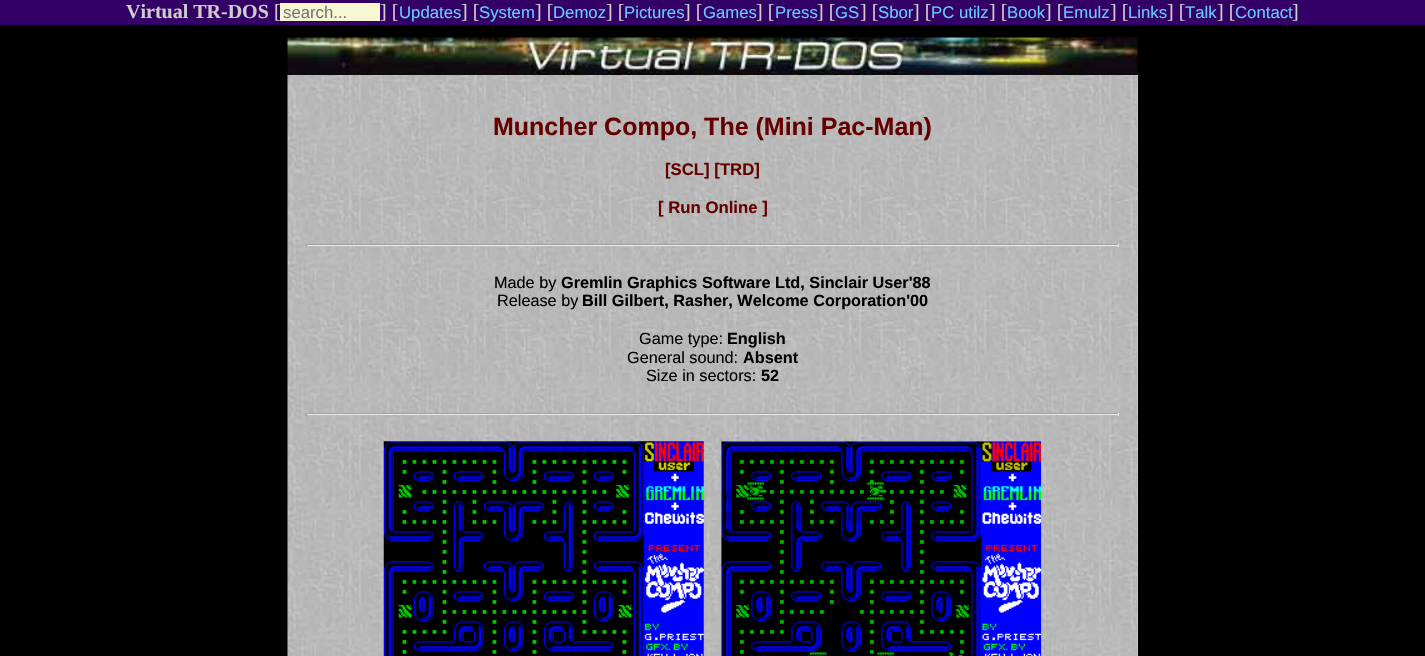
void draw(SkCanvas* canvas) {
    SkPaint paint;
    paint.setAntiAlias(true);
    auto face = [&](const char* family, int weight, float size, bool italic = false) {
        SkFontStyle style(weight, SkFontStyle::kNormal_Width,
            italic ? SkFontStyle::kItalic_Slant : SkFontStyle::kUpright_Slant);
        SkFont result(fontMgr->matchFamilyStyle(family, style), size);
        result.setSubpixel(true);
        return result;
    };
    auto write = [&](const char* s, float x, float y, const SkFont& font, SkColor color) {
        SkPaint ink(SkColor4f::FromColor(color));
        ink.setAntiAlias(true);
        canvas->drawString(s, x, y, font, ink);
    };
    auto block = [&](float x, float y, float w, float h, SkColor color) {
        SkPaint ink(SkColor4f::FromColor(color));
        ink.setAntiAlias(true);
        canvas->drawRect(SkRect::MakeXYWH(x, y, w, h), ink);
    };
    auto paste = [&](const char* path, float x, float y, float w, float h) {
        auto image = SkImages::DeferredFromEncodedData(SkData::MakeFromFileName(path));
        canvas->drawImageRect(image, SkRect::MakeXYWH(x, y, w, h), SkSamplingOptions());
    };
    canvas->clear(SK_ColorBLACK);
    block(0, 0, 1425, 25, SkColorSetRGB(51, 0, 102));
    auto kFont1 = face("Liberation Serif", 700, 20);
    write("Virtual TR-DOS", 126, 18, kFont1, SkColorSetRGB(204, 204, 204));
    auto kFont2 = face("Liberation Serif", 400, 20);
    write("[", 274, 18, kFont2, SkColorSetRGB(204, 204, 204));
    block(280, 3, 100, 18, SkColorSetRGB(245, 248, 211));
    auto kFont3 = face("Liberation Sans", 400, 16.75f);
    write("search...", 283, 18, kFont3, SkColorSetRGB(117, 117, 117));
    write("] [", 380, 18, kFont2, SkColorSetRGB(204, 204, 204));
    write("Updates", 399, 18, kFont3, SkColorSetRGB(102, 204, 255));
    write("] [", 461, 18, kFont2, SkColorSetRGB(204, 204, 204));
    write("System", 479, 18, kFont3, SkColorSetRGB(102, 204, 255));
    write("] [", 535, 18, kFont2, SkColorSetRGB(204, 204, 204));
    write("Demoz", 553, 18, kFont3, SkColorSetRGB(102, 204, 255));
    write("] [", 606, 18, kFont2, SkColorSetRGB(204, 204, 204));
    write("Pictures", 624, 18, kFont3, SkColorSetRGB(102, 204, 255));
    write("] [", 684, 18, kFont2, SkColorSetRGB(204, 204, 204));
    write("Games", 703, 18, kFont3, SkColorSetRGB(102, 204, 255));
    write("] [", 756, 18, kFont2, SkColorSetRGB(204, 204, 204));
    write("Press", 775, 18, kFont3, SkColorSetRGB(102, 204, 255));
    write("] [", 817, 18, kFont2, SkColorSetRGB(204, 204, 204));
    write("GS", 835, 18, kFont3, SkColorSetRGB(102, 204, 255));
    write("] [", 860, 18, kFont2, SkColorSetRGB(204, 204, 204));
    write("Sbor", 878, 18, kFont3, SkColorSetRGB(102, 204, 255));
    write("] [", 913, 18, kFont2, SkColorSetRGB(204, 204, 204));
    write("PC utilz", 931, 18, kFont3, SkColorSetRGB(102, 204, 255));
    write("] [", 989, 18, kFont2, SkColorSetRGB(204, 204, 204));
    write("Book", 1007, 18, kFont3, SkColorSetRGB(102, 204, 255));
    write("] [", 1045, 18, kFont2, SkColorSetRGB(204, 204, 204));
    write("Emulz", 1063, 18, kFont3, SkColorSetRGB(102, 204, 255));
    write("] [", 1110, 18, kFont2, SkColorSetRGB(204, 204, 204));
    write("Links", 1128, 18, kFont3, SkColorSetRGB(102, 204, 255));
    write("] [", 1167, 18, kFont2, SkColorSetRGB(204, 204, 204));
    write("Talk", 1185, 18, kFont3, SkColorSetRGB(102, 204, 255));
    write("] [", 1217, 18, kFont2, SkColorSetRGB(204, 204, 204));
    write("Contact", 1235, 18, kFont3, SkColorSetRGB(102, 204, 255));
    write("]", 1292, 18, kFont2, SkColorSetRGB(204, 204, 204));
    paste("pic1.png", 287, 37, 851, 38);
    block(1137, 75, 1, 581, SkColorSetRGB(204, 204, 204));
    paste("pic2.png", 287, 75, 851, 581);
    auto kFont4 = face("Liberation Sans", 700, 25);
    write("Muncher Compo, The (Mini Pac-Man)", 493, 135, kFont4, SkColorSetRGB(102, 0, 0));
    auto kFont5 = face("Liberation Sans", 700, 16.75f);
    write("[SCL] [TRD]", 665, 175, kFont5, SkColorSetRGB(102, 0, 0));
    write("[ Run Online ]", 658, 213, kFont5, SkColorSetRGB(102, 0, 0));
    block(306, 244, 813, 1, SkColorSetRGB(159, 159, 159));
    block(1118, 244, 1, 3, SkColorSetRGB(238, 238, 238));
    block(306, 245, 813, 1, SkColorSetRGB(238, 238, 238));
    block(306, 244, 1, 3, SkColorSetRGB(159, 159, 159));
    auto kFont6 = face("Liberation Sans", 400, 16.25f);
    write("Made by", 494, 288, kFont6, SK_ColorBLACK);
    auto kFont7 = face("Liberation Sans", 700, 16.25f);
    write("Gremlin Graphics Software Ltd, Sinclair User'88", 561, 288, kFont7, SK_ColorBLACK);
    write("Release by", 497, 306, kFont6, SK_ColorBLACK);
    write("Bill Gilbert, Rasher, Welcome Corporation'00", 582, 306, kFont7, SK_ColorBLACK);
    write("Game type:", 639, 344, kFont6, SK_ColorBLACK);
    write("English", 727, 344, kFont7, SK_ColorBLACK);
    write("General sound:", 627, 363, kFont6, SK_ColorBLACK);
    write("Absent", 743, 363, kFont7, SK_ColorBLACK);
    write("Size in sectors:", 646, 381, kFont6, SK_ColorBLACK);
    write("52", 761, 381, kFont7, SK_ColorBLACK);
    block(306, 413, 813, 1, SkColorSetRGB(159, 159, 159));
    block(1118, 413, 1, 3, SkColorSetRGB(238, 238, 238));
    block(306, 414, 813, 1, SkColorSetRGB(238, 238, 238));
    block(306, 413, 1, 3, SkColorSetRGB(159, 159, 159));
    paste("pic3.png", 383, 441, 321, 215);
    paste("pic4.png", 721, 441, 321, 215);
}
